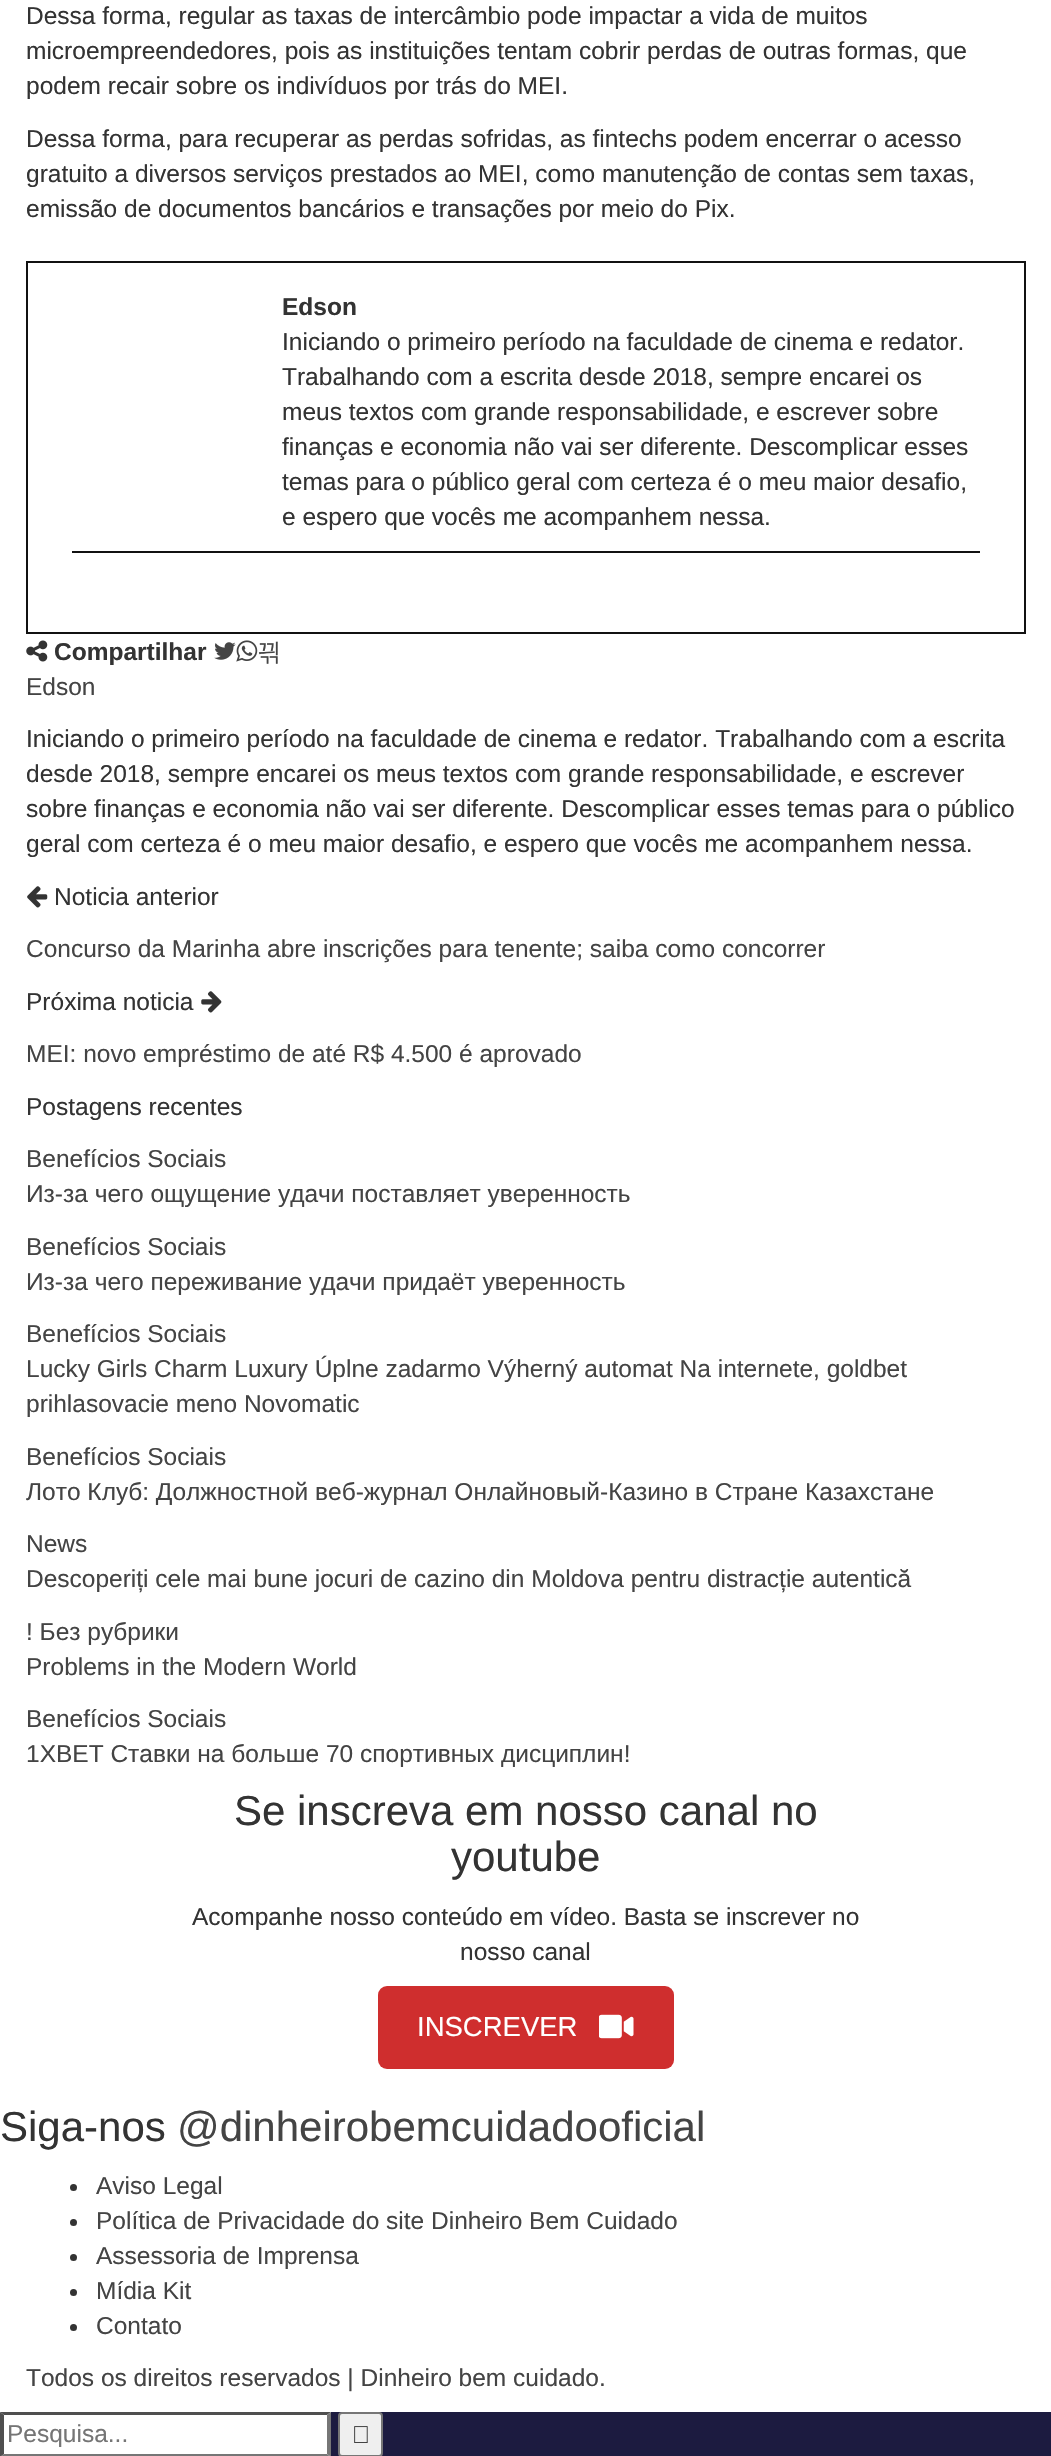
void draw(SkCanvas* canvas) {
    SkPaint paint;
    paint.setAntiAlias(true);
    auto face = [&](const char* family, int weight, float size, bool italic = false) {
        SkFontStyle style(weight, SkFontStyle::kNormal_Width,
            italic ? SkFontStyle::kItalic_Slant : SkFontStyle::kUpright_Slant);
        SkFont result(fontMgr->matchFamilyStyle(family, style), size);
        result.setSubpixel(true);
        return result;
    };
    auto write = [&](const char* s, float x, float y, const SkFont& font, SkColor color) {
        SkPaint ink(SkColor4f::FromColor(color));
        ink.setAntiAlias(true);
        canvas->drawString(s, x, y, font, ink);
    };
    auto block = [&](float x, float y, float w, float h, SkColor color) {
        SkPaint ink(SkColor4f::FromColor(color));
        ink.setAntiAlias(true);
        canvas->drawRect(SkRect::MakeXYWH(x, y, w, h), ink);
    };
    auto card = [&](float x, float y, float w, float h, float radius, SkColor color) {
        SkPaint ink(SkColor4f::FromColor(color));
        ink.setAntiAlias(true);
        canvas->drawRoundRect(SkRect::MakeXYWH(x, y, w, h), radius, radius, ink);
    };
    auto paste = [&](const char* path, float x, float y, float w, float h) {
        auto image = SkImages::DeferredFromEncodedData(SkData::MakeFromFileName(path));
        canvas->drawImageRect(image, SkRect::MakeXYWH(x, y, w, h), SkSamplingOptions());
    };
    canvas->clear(SK_ColorWHITE);
    auto kFont1 = face("Liberation Sans", 400, 24.5f);
    write("Dessa forma, regular as taxas de intercâmbio pode impactar a vida de muitos", 26, 24, kFont1, SkColorSetRGB(51, 51, 51));
    write("microempreendedores, pois as instituições tentam cobrir perdas de outras formas, que", 26, 59, kFont1, SkColorSetRGB(51, 51, 51));
    write("podem recair sobre os indivíduos por trás do MEI.", 26, 94, kFont1, SkColorSetRGB(51, 51, 51));
    write("Dessa forma, para recuperar as perdas sofridas, as fintechs podem encerrar o acesso", 26, 147, kFont1, SkColorSetRGB(51, 51, 51));
    write("gratuito a diversos serviços prestados ao MEI, como manutenção de contas sem taxas,", 26, 182, kFont1, SkColorSetRGB(51, 51, 51));
    write("emissão de documentos bancários e transações por meio do Pix.", 26, 217, kFont1, SkColorSetRGB(51, 51, 51));
    paint.setStyle(SkPaint::kStroke_Style);
    paint.setStrokeWidth(2);
    paint.setColor(SkColorSetRGB(17, 17, 17));
    canvas->drawRect(SkRect::MakeXYWH(27, 262, 998, 371), paint);
    auto kFont2 = face("Liberation Sans", 700, 24.5f);
    write("Edson", 282, 315, kFont2, SkColorSetRGB(51, 51, 51));
    write("Iniciando o primeiro período na faculdade de cinema e redator.", 282, 350, kFont1, SkColorSetRGB(51, 51, 51));
    write("Trabalhando com a escrita desde 2018, sempre encarei os", 282, 385, kFont1, SkColorSetRGB(51, 51, 51));
    write("meus textos com grande responsabilidade, e escrever sobre", 282, 420, kFont1, SkColorSetRGB(51, 51, 51));
    write("finanças e economia não vai ser diferente. Descomplicar esses", 282, 455, kFont1, SkColorSetRGB(51, 51, 51));
    write("temas para o público geral com certeza é o meu maior desafio,", 282, 490, kFont1, SkColorSetRGB(51, 51, 51));
    write("e espero que vocês me acompanhem nessa.", 282, 525, kFont1, SkColorSetRGB(51, 51, 51));
    block(72, 551, 908, 2, SkColorSetRGB(17, 17, 17));
    paste("pic1.png", 26, 640, 22, 22);
    write("Compartilhar", 54, 660, kFont2, SkColorSetRGB(51, 51, 51));
    paste("pic2.png", 214, 642, 22, 18);
    paste("pic3.png", 236, 640, 22, 22);
    auto kFont3 = face("WenQuanYi Zen Hei", 500, 24.5f);
    write("끢", 257, 660, kFont3, SkColorSetRGB(68, 68, 68));
    write("Edson", 26, 695, kFont1, SkColorSetRGB(68, 68, 68));
    write("Iniciando o primeiro período na faculdade de cinema e redator. Trabalhando com a escrita", 26, 747, kFont1, SkColorSetRGB(51, 51, 51));
    write("desde 2018, sempre encarei os meus textos com grande responsabilidade, e escrever", 26, 782, kFont1, SkColorSetRGB(51, 51, 51));
    write("sobre finanças e economia não vai ser diferente. Descomplicar esses temas para o público", 26, 817, kFont1, SkColorSetRGB(51, 51, 51));
    write("geral com certeza é o meu maior desafio, e espero que vocês me acompanhem nessa.", 26, 852, kFont1, SkColorSetRGB(51, 51, 51));
    paste("pic4.png", 27, 886, 21, 22);
    write("Noticia anterior", 54, 905, kFont1, SkColorSetRGB(51, 51, 51));
    write("Concurso da Marinha abre inscrições para tenente; saiba como concorrer", 26, 957, kFont1, SkColorSetRGB(68, 68, 68));
    write("Próxima noticia", 26, 1010, kFont1, SkColorSetRGB(51, 51, 51));
    paste("pic5.png", 201, 991, 21, 22);
    write("MEI: novo empréstimo de até R$ 4.500 é aprovado", 26, 1062, kFont1, SkColorSetRGB(68, 68, 68));
    write("Postagens recentes", 26, 1115, kFont1, SkColorSetRGB(51, 51, 51));
    write("Benefícios Sociais", 26, 1167, kFont1, SkColorSetRGB(68, 68, 68));
    write("Из-за чего ощущение удачи поставляет уверенность", 26, 1202, kFont1, SkColorSetRGB(68, 68, 68));
    write("Benefícios Sociais", 26, 1255, kFont1, SkColorSetRGB(68, 68, 68));
    write("Из-за чего переживание удачи придаёт уверенность", 26, 1290, kFont1, SkColorSetRGB(68, 68, 68));
    write("Benefícios Sociais", 26, 1342, kFont1, SkColorSetRGB(68, 68, 68));
    write("Lucky Girls Charm Luxury Úplne zadarmo Výherný automat Na internete, goldbet", 26, 1377, kFont1, SkColorSetRGB(68, 68, 68));
    write("prihlasovacie meno Novomatic", 26, 1412, kFont1, SkColorSetRGB(68, 68, 68));
    write("Benefícios Sociais", 26, 1465, kFont1, SkColorSetRGB(68, 68, 68));
    write("Лото Клуб: Должностной веб-журнал Онлайновый-Казино в Стране Казахстане", 26, 1500, kFont1, SkColorSetRGB(68, 68, 68));
    write("News", 26, 1552, kFont1, SkColorSetRGB(68, 68, 68));
    write("Descoperiți cele mai bune jocuri de cazino din Moldova pentru distracție autentică", 26, 1587, kFont1, SkColorSetRGB(68, 68, 68));
    write("! Без рубрики", 26, 1640, kFont1, SkColorSetRGB(68, 68, 68));
    write("Problems in the Modern World", 26, 1675, kFont1, SkColorSetRGB(68, 68, 68));
    write("Benefícios Sociais", 26, 1727, kFont1, SkColorSetRGB(68, 68, 68));
    write("1XBET Ставки на больше 70 спортивных дисциплин!", 26, 1762, kFont1, SkColorSetRGB(68, 68, 68));
    auto kFont4 = face("Liberation Sans", 400, 42);
    write("Se inscreva em nosso canal no", 234, 1825, kFont4, SkColorSetRGB(51, 51, 51));
    write("youtube", 451, 1871, kFont4, SkColorSetRGB(51, 51, 51));
    write("Acompanhe nosso conteúdo em vídeo. Basta se inscrever no", 192, 1925, kFont1, SkColorSetRGB(51, 51, 51));
    write("nosso canal", 460, 1960, kFont1, SkColorSetRGB(51, 51, 51));
    card(378, 1986, 296, 83, 9, SkColorSetRGB(207, 46, 46));
    auto kFont5 = face("Liberation Sans", 400, 27.5f);
    write("INSCREVER", 417, 2036, kFont5, SK_ColorWHITE);
    paste("pic6.png", 599, 2014, 35, 25);
    write("Siga-nos", 0, 2141, kFont4, SkColorSetRGB(51, 51, 51));
    write("@dinheirobemcuidadooficial", 177, 2141, kFont4, SkColorSetRGB(68, 68, 68));
    paint.setStyle(SkPaint::kFill_Style);
    paint.setColor(SkColorSetRGB(51, 51, 51));
    canvas->drawCircle(73.5f, 2187.5f, 3.5f, paint);
    write("Aviso Legal", 96, 2194, kFont1, SkColorSetRGB(68, 68, 68));
    canvas->drawCircle(73.5f, 2222.5f, 3.5f, paint);
    write("Política de Privacidade do site Dinheiro Bem Cuidado", 96, 2229, kFont1, SkColorSetRGB(68, 68, 68));
    canvas->drawCircle(73.5f, 2257.5f, 3.5f, paint);
    write("Assessoria de Imprensa", 96, 2264, kFont1, SkColorSetRGB(68, 68, 68));
    canvas->drawCircle(73.5f, 2292.5f, 3.5f, paint);
    write("Mídia Kit", 96, 2299, kFont1, SkColorSetRGB(68, 68, 68));
    canvas->drawCircle(73.5f, 2327.5f, 3.5f, paint);
    write("Contato", 96, 2334, kFont1, SkColorSetRGB(68, 68, 68));
    write("Todos os direitos reservados | Dinheiro bem cuidado.", 26, 2386, kFont1, SkColorSetRGB(68, 68, 68));
    block(331, 2412, 720, 44, SkColorSetRGB(28, 27, 64));
    paint.setColor(SkColorSetRGB(79, 79, 79));
    canvas->drawPath(SkPathBuilder().moveTo(0, 2412).lineTo(331, 2412).lineTo(327, 2415).lineTo(4, 2415).close().detach(), paint);
    paint.setColor(SkColorSetRGB(118, 118, 118));
    canvas->drawPath(SkPathBuilder().moveTo(331, 2412).lineTo(331, 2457).lineTo(327, 2454).lineTo(327, 2415).close().detach(), paint);
    canvas->drawPath(SkPathBuilder().moveTo(331, 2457).lineTo(0, 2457).lineTo(4, 2454).lineTo(327, 2454).close().detach(), paint);
    paint.setColor(SkColorSetRGB(79, 79, 79));
    canvas->drawPath(SkPathBuilder().moveTo(0, 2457).lineTo(0, 2412).lineTo(4, 2415).lineTo(4, 2454).close().detach(), paint);
    write("Pesquisa...", 7, 2442, kFont1, SkColorSetRGB(117, 117, 117));
    paint.setColor(SkColorSetRGB(239, 239, 239));
    canvas->drawRoundRect(SkRect::MakeXYWH(339, 2413, 43, 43), 3, 3, paint);
    paint.setStyle(SkPaint::kStroke_Style);
    paint.setColor(SkColorSetRGB(118, 118, 118));
    canvas->drawRoundRect(SkRect::MakeXYWH(339, 2413, 43, 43), 3, 3, paint);
    paste("pic7.png", 354, 2426, 14, 17);
}
